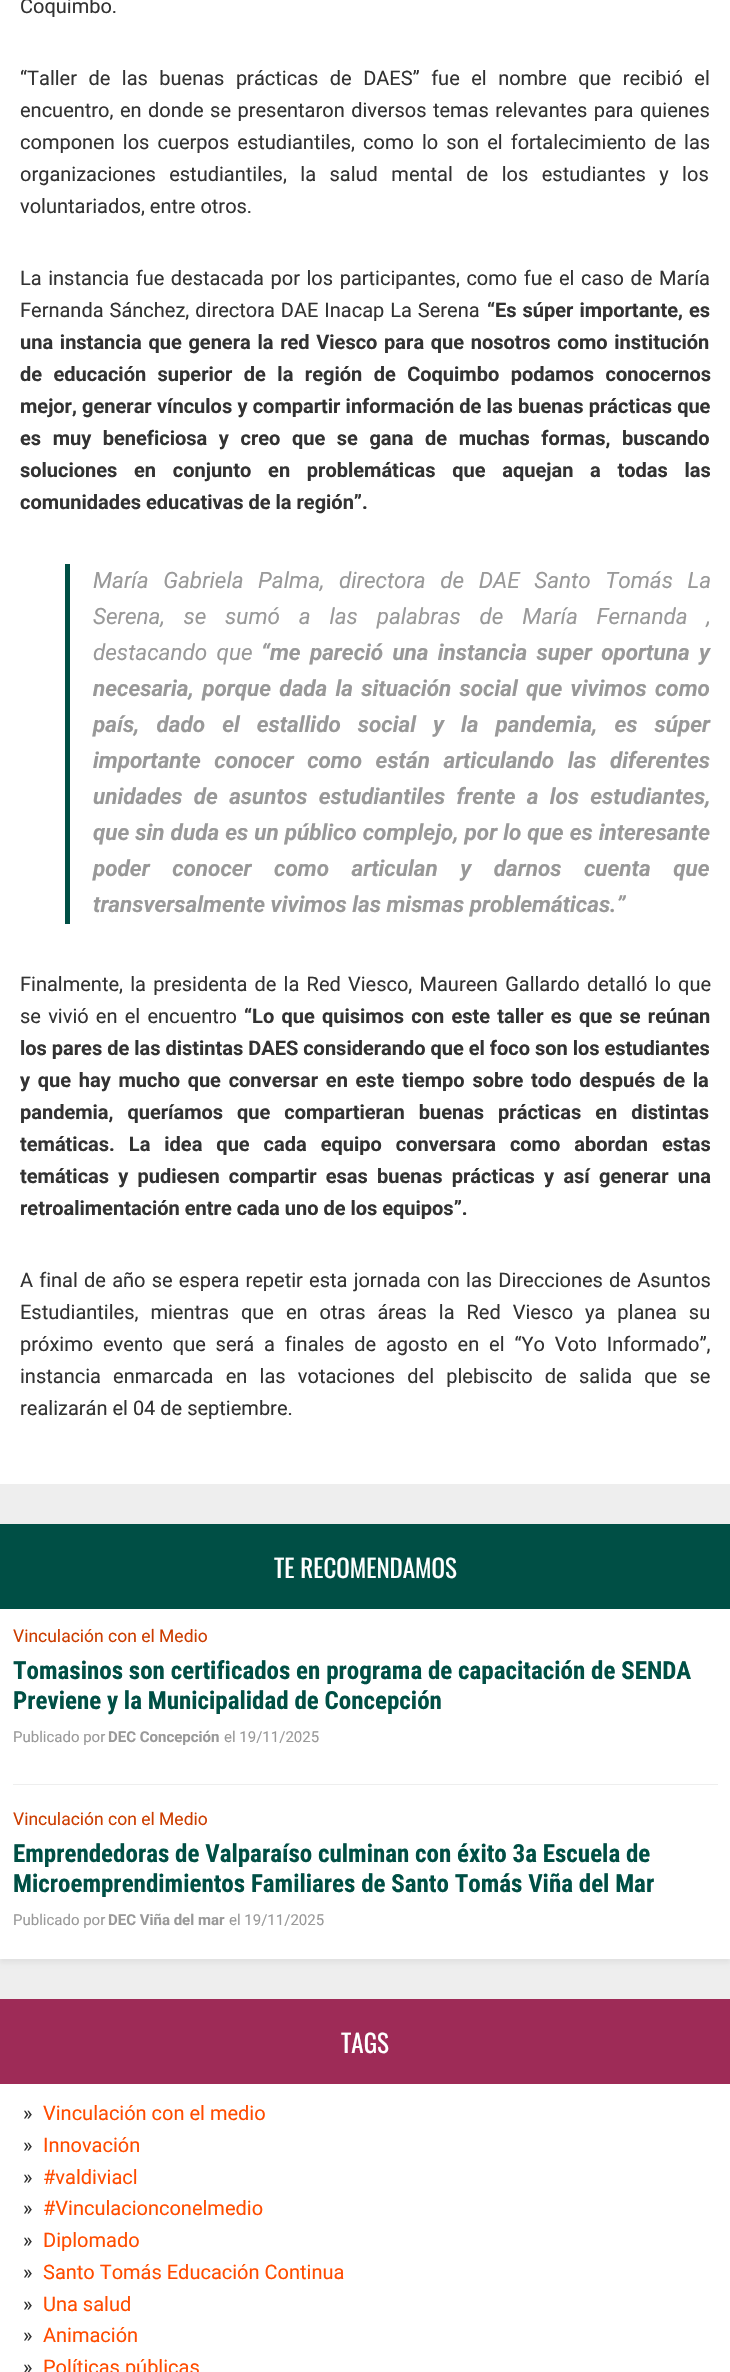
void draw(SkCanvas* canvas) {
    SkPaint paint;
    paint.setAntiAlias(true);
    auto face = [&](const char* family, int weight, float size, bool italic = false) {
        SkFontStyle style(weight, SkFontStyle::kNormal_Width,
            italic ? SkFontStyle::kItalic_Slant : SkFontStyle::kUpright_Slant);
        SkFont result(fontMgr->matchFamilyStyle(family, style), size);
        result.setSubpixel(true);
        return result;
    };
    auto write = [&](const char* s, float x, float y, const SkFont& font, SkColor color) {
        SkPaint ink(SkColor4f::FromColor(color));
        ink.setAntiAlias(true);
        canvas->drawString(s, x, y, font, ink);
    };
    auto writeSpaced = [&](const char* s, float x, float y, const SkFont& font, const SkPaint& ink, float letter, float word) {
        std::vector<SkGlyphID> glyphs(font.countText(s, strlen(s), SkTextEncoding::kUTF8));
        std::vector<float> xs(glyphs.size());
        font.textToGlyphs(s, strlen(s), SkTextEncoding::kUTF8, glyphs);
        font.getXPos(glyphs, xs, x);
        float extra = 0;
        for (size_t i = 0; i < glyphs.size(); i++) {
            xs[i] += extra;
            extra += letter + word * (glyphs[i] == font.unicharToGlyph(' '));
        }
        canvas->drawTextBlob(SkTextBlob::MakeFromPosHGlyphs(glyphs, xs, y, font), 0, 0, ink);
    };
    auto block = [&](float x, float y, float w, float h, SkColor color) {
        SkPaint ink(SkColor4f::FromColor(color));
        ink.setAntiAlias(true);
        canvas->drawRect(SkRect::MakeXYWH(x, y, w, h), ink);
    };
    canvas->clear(SkColorSetRGB(238, 238, 238));
    block(0, 0, 730, 1484, SK_ColorWHITE);
    auto kFont1 = face("Roboto", 400, 20);
    write("Coquimbo.", 20, 13, kFont1, SkColorSetRGB(51, 51, 51));
    paint.setColor(SkColorSetRGB(51, 51, 51));
    writeSpaced("“Taller de las buenas prácticas de DAES” fue el nombre que recibió el", 20, 85, kFont1, paint, 0, 6.5f);
    writeSpaced("encuentro, en donde se presentaron diversos temas relevantes para quienes", 20, 117, kFont1, paint, 0, 1.5f);
    writeSpaced("componen los cuerpos estudiantiles, como lo son el fortalecimiento de las", 20, 149, kFont1, paint, 0, 3.1f);
    writeSpaced("organizaciones estudiantiles, la salud mental de los estudiantes y los", 20, 181, kFont1, paint, 0, 8.5f);
    write("voluntariados, entre otros.", 20, 213, kFont1, SkColorSetRGB(51, 51, 51));
    writeSpaced("La instancia fue destacada por los participantes, como fue el caso de María", 20, 285, kFont1, paint, 0, 1.6f);
    writeSpaced("Fernanda Sánchez, directora DAE Inacap La Serena", 20, 317, kFont1, paint, 0, 1);
    auto kFont2 = face("Roboto", 700, 20);
    writeSpaced("“Es súper importante, es", 487, 317, kFont2, paint, 0, 1);
    writeSpaced("una instancia que genera la red Viesco para que nosotros como institución", 20, 349, kFont2, paint, 0, 1.75f);
    writeSpaced("de educación superior de la región de Coquimbo podamos conocernos", 20, 381, kFont2, paint, 0, 6.5f);
    writeSpaced("mejor, generar vínculos y compartir información de las buenas prácticas que", 20, 413, kFont2, paint, 0, 0.25f);
    writeSpaced("es muy beneficiosa y creo que se gana de muchas formas, buscando", 20, 445, kFont2, paint, 0, 6.6f);
    writeSpaced("soluciones en conjunto en problemáticas que aquejan a todas las", 20, 477, kFont2, paint, 0, 11.75f);
    write("comunidades educativas de la región”.", 20, 509, kFont2, SkColorSetRGB(51, 51, 51));
    block(65, 564, 5, 360, SkColorSetRGB(0, 79, 69));
    auto kFont3 = face("Roboto", 400, 22.5f, true);
    paint.setColor(SkColorSetRGB(153, 153, 153));
    writeSpaced("María Gabriela Palma, directora de DAE Santo Tomás La", 93, 588, kFont3, paint, 0, 9);
    writeSpaced("Serena, se sumó a las palabras de María Fernanda ,", 93, 624, kFont3, paint, 0, 13.25f);
    writeSpaced("destacando que", 93, 660, kFont3, paint, 0, 3.75f);
    auto kFont4 = face("Roboto", 700, 22.5f, true);
    writeSpaced("“me pareció una instancia super oportuna y", 261, 660, kFont4, paint, 0, 3.75f);
    writeSpaced("necesaria, porque dada la situación social que vivimos como", 93, 696, kFont4, paint, 0, 2.75f);
    writeSpaced("país, dado el estallido social y la pandemia, es súper", 93, 732, kFont4, paint, 0, 11.5f);
    writeSpaced("importante conocer como están articulando las diferentes", 93, 768, kFont4, paint, 0, 8);
    writeSpaced("unidades de asuntos estudiantiles frente a los estudiantes,", 93, 804, kFont4, paint, 0, 5.75f);
    writeSpaced("que sin duda es un público complejo, por lo que es interesante", 93, 840, kFont4, paint, 0, 0.5f);
    writeSpaced("poder conocer como articulan y darnos cuenta que", 93, 876, kFont4, paint, 0, 17);
    write("transversalmente vivimos las mismas problemáticas.”", 93, 912, kFont4, SkColorSetRGB(153, 153, 153));
    paint.setColor(SkColorSetRGB(51, 51, 51));
    writeSpaced("Finalmente, la presidenta de la Red Viesco, Maureen Gallardo detalló lo que", 20, 991, kFont1, paint, 0, 2.25f);
    writeSpaced("se vivió en el encuentro", 20, 1023, kFont1, paint, 0, 2.25f);
    writeSpaced("“Lo que quisimos con este taller es que se reúnan", 244, 1023, kFont2, paint, 0, 2.25f);
    write("los pares de las distintas DAES considerando que el foco son los estudiantes", 20, 1055, kFont2, SkColorSetRGB(51, 51, 51));
    writeSpaced("y que hay mucho que conversar en este tiempo sobre todo después de la", 20, 1087, kFont2, paint, 0, 2.75f);
    writeSpaced("pandemia, queríamos que compartieran buenas prácticas en distintas", 20, 1119, kFont2, paint, 0, 9);
    writeSpaced("temáticas. La idea que cada equipo conversara como abordan estas", 20, 1151, kFont2, paint, 0, 9);
    writeSpaced("temáticas y pudiesen compartir esas buenas prácticas y así generar una", 20, 1183, kFont2, paint, 0, 4.25f);
    write("retroalimentación entre cada uno de los equipos”.", 20, 1215, kFont2, SkColorSetRGB(51, 51, 51));
    writeSpaced("A final de año se espera repetir esta jornada con las Direcciones de Asuntos", 20, 1287, kFont1, paint, 0, 1.25f);
    writeSpaced("Estudiantiles, mientras que en otras áreas la Red Viesco ya planea su", 20, 1319, kFont1, paint, 0, 7);
    writeSpaced("próximo evento que será a finales de agosto en el “Yo Voto Informado”,", 20, 1351, kFont1, paint, 0, 4.9f);
    writeSpaced("instancia enmarcada en las votaciones del plebiscito de salida que se", 20, 1383, kFont1, paint, 0, 7.25f);
    write("realizarán el 04 de septiembre.", 20, 1415, kFont1, SkColorSetRGB(51, 51, 51));
    paint.setColor(SkColorSetARGB(13, 0, 0, 0));
    paint.setMaskFilter(SkMaskFilter::MakeBlur(kNormal_SkBlurStyle, 2));
    canvas->drawRect(SkRect::MakeXYWH(0, 1528, 730, 435), paint);
    paint.setMaskFilter(nullptr);
    block(0, 1609, 730, 350, SK_ColorWHITE);
    block(0, 1524, 730, 85, SkColorSetRGB(0, 79, 69));
    auto kFont5 = face("Oswald", 400, 25);
    write("TE RECOMENDAMOS", 274, 1578, kFont5, SK_ColorWHITE);
    auto kFont6 = face("Roboto", 400, 17.5f);
    write("Vinculación con el Medio", 13, 1642, kFont6, SkColorSetRGB(204, 61, 0));
    auto kFont7 = face("Roboto Condensed", 700, 25);
    write("Tomasinos son certificados en programa de capacitación de SENDA", 13, 1679, kFont7, SkColorSetRGB(0, 79, 69));
    write("Previene y la Municipalidad de Concepción", 13, 1709, kFont7, SkColorSetRGB(0, 79, 69));
    auto kFont8 = face("Roboto", 400, 15);
    write("Publicado por", 13, 1742, kFont8, SkColorSetRGB(153, 153, 153));
    auto kFont9 = face("Roboto", 700, 15);
    write("DEC Concepción", 108, 1742, kFont9, SkColorSetRGB(153, 153, 153));
    write("el 19/11/2025", 224, 1742, kFont8, SkColorSetRGB(153, 153, 153));
    block(13, 1784, 705, 1, SkColorSetRGB(238, 238, 238));
    write("Vinculación con el Medio", 13, 1825, kFont6, SkColorSetRGB(204, 61, 0));
    write("Emprendedoras de Valparaíso culminan con éxito 3a Escuela de", 13, 1862, kFont7, SkColorSetRGB(0, 79, 69));
    write("Microemprendimientos Familiares de Santo Tomás Viña del Mar", 13, 1892, kFont7, SkColorSetRGB(0, 79, 69));
    write("Publicado por", 13, 1925, kFont8, SkColorSetRGB(153, 153, 153));
    write("DEC Viña del mar", 108, 1925, kFont9, SkColorSetRGB(153, 153, 153));
    write("el 19/11/2025", 229, 1925, kFont8, SkColorSetRGB(153, 153, 153));
    block(0, 2084, 730, 288, SK_ColorWHITE);
    block(0, 1999, 730, 85, SkColorSetRGB(158, 43, 87));
    write("TAGS", 341, 2053, kFont5, SK_ColorWHITE);
    write("»", 23, 2120, kFont1, SkColorSetRGB(51, 51, 51));
    write("Vinculación con el medio", 43, 2120, kFont1, SkColorSetRGB(255, 76, 0));
    write("»", 23, 2152, kFont1, SkColorSetRGB(51, 51, 51));
    write("Innovación", 43, 2152, kFont1, SkColorSetRGB(255, 76, 0));
    write("»", 23, 2184, kFont1, SkColorSetRGB(51, 51, 51));
    write("#valdiviacl", 43, 2184, kFont1, SkColorSetRGB(255, 76, 0));
    write("»", 23, 2215, kFont1, SkColorSetRGB(51, 51, 51));
    write("#Vinculacionconelmedio", 43, 2215, kFont1, SkColorSetRGB(255, 76, 0));
    write("»", 23, 2247, kFont1, SkColorSetRGB(51, 51, 51));
    write("Diplomado", 43, 2247, kFont1, SkColorSetRGB(255, 76, 0));
    write("»", 23, 2279, kFont1, SkColorSetRGB(51, 51, 51));
    write("Santo Tomás Educación Continua", 43, 2279, kFont1, SkColorSetRGB(255, 76, 0));
    write("»", 23, 2311, kFont1, SkColorSetRGB(51, 51, 51));
    write("Una salud", 43, 2311, kFont1, SkColorSetRGB(255, 76, 0));
    write("»", 23, 2342, kFont1, SkColorSetRGB(51, 51, 51));
    write("Animación", 43, 2342, kFont1, SkColorSetRGB(255, 76, 0));
    write("»", 23, 2374, kFont1, SkColorSetRGB(51, 51, 51));
    write("Políticas públicas", 43, 2374, kFont1, SkColorSetRGB(255, 76, 0));
}
